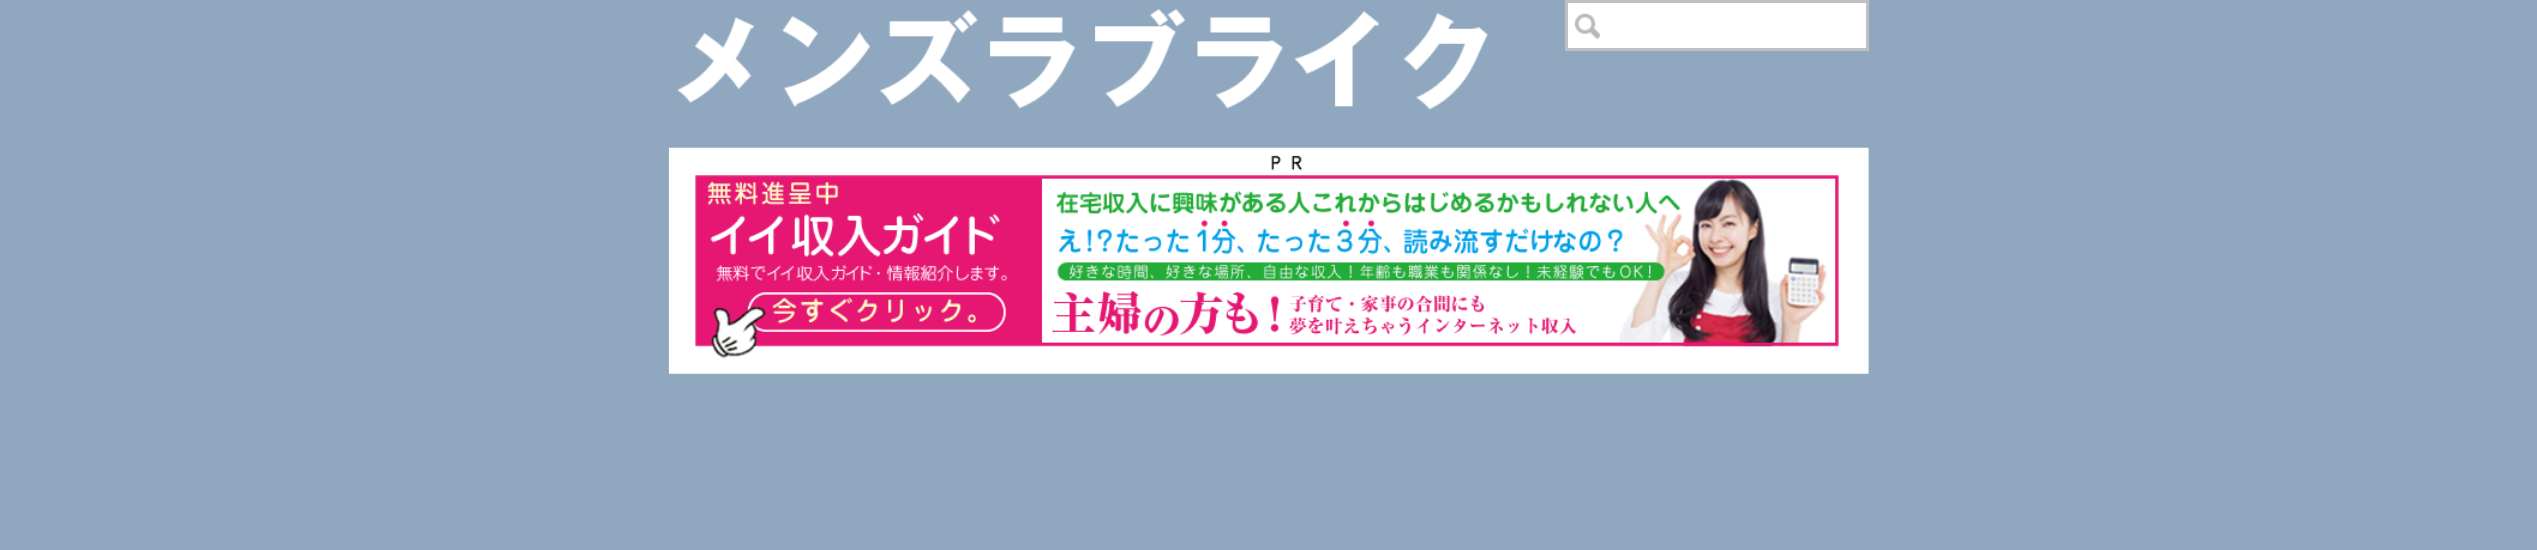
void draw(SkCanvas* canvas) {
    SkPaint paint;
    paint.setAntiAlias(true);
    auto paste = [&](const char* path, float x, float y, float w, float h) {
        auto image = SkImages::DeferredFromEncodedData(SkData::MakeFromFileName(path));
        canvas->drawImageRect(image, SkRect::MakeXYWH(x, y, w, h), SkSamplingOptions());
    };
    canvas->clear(SkColorSetRGB(143, 168, 191));
    paste("pic1.png", 677, 8, 811, 102);
    paint.setColor(SK_ColorWHITE);
    canvas->drawRect(SkRect::MakeXYWH(1566.5f, 1.5f, 301, 48), paint);
    paint.setStyle(SkPaint::kStroke_Style);
    paint.setStrokeWidth(3);
    paint.setColor(SkColorSetRGB(192, 192, 192));
    canvas->drawRect(SkRect::MakeXYWH(1566.5f, 1.5f, 301, 48), paint);
    paste("pic2.png", 1575, 13, 25, 26);
    paste("pic3.png", 668, 147, 1201, 227);
}
